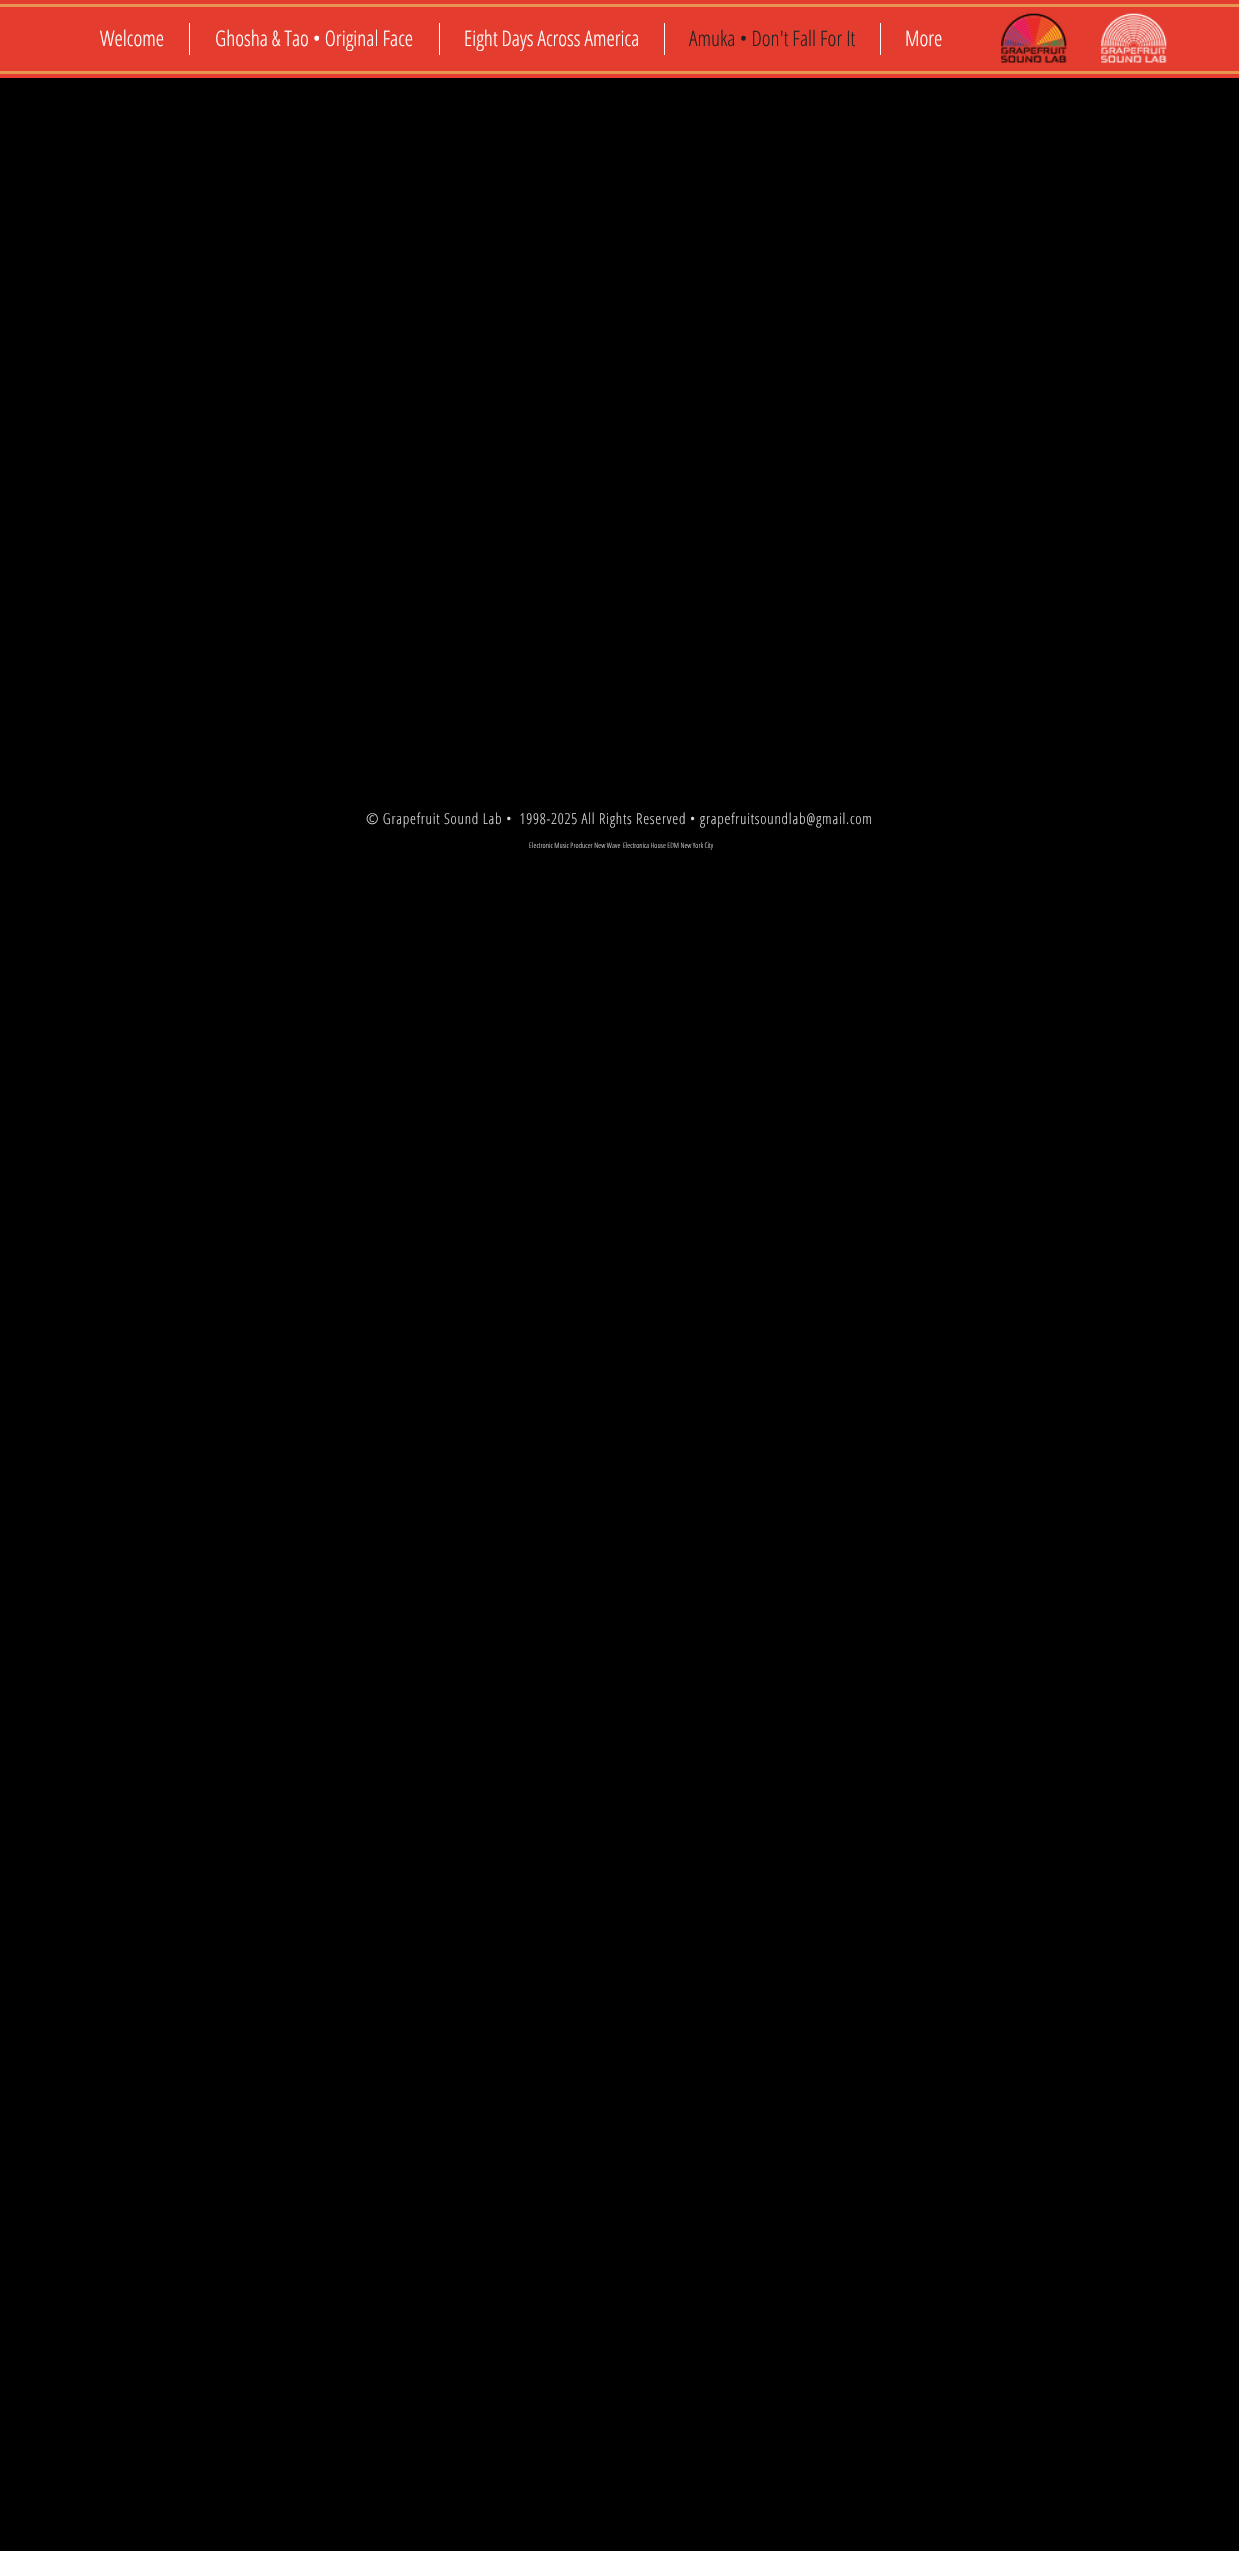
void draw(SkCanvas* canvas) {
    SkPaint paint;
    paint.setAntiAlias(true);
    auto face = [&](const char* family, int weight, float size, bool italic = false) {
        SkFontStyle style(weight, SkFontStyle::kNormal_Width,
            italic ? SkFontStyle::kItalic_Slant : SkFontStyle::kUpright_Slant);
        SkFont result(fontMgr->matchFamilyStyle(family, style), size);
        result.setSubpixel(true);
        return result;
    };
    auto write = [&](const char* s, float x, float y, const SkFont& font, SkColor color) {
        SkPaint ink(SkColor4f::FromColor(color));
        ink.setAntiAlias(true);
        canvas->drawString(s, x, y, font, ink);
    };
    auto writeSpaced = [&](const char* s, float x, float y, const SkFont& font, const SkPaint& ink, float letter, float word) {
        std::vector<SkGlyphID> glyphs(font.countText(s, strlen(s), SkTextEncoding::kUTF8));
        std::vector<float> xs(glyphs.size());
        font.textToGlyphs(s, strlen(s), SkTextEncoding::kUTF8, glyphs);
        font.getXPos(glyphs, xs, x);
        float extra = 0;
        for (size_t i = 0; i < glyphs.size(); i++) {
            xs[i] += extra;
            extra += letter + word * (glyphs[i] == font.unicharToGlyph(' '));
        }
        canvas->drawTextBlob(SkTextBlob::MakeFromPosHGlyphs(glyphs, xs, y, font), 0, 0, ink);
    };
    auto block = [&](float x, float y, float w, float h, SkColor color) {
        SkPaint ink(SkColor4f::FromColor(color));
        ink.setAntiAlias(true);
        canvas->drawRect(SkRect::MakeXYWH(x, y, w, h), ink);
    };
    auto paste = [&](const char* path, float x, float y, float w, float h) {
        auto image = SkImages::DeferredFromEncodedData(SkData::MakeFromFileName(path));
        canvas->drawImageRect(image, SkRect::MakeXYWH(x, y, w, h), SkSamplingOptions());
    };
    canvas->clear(SK_ColorBLACK);
    block(0, 0, 1239, 78, SkColorSetRGB(228, 60, 47));
    block(0, 4, 1239, 3, SkColorSetRGB(232, 149, 81));
    block(0, 71, 1239, 3, SkColorSetRGB(232, 149, 81));
    auto kFont1 = face("Open Sans Condensed", 300, 21.25f);
    write("Welcome", 100, 46, kFont1, SK_ColorWHITE);
    block(189, 23, 1, 32, SK_ColorWHITE);
    write("Ghosha & Tao • Original Face", 215, 46, kFont1, SK_ColorWHITE);
    block(439, 23, 1, 32, SK_ColorWHITE);
    write("Eight Days Across America", 464, 46, kFont1, SK_ColorWHITE);
    block(664, 23, 1, 32, SK_ColorWHITE);
    write("Amuka • Don't Fall For It", 689, 46, kFont1, SkColorSetRGB(34, 34, 34));
    block(880, 23, 1, 32, SK_ColorWHITE);
    write("More", 905, 46, kFont1, SK_ColorWHITE);
    paste("pic1.png", 1001, 13, 66, 50);
    paste("pic2.png", 1101, 13, 66, 50);
    auto kFont2 = face("Open Sans Condensed", 300, 15);
    paint.setColor(SkColorSetRGB(219, 219, 219));
    writeSpaced("© Grapefruit Sound Lab •  1998-2025 All Rights Reserved • grapefruitsoundlab@gmail.com", 366, 824, kFont2, paint, 0.75f, 0);
    auto kFont3 = face("Open Sans Condensed", 300, 7.5f);
    writeSpaced("Electronic Music Producer New Wave", 529, 848, kFont3, paint, 0.05f, 0);
    write("Electronica House EDM New York City", 623, 848, kFont3, SkColorSetRGB(219, 219, 219));
}
